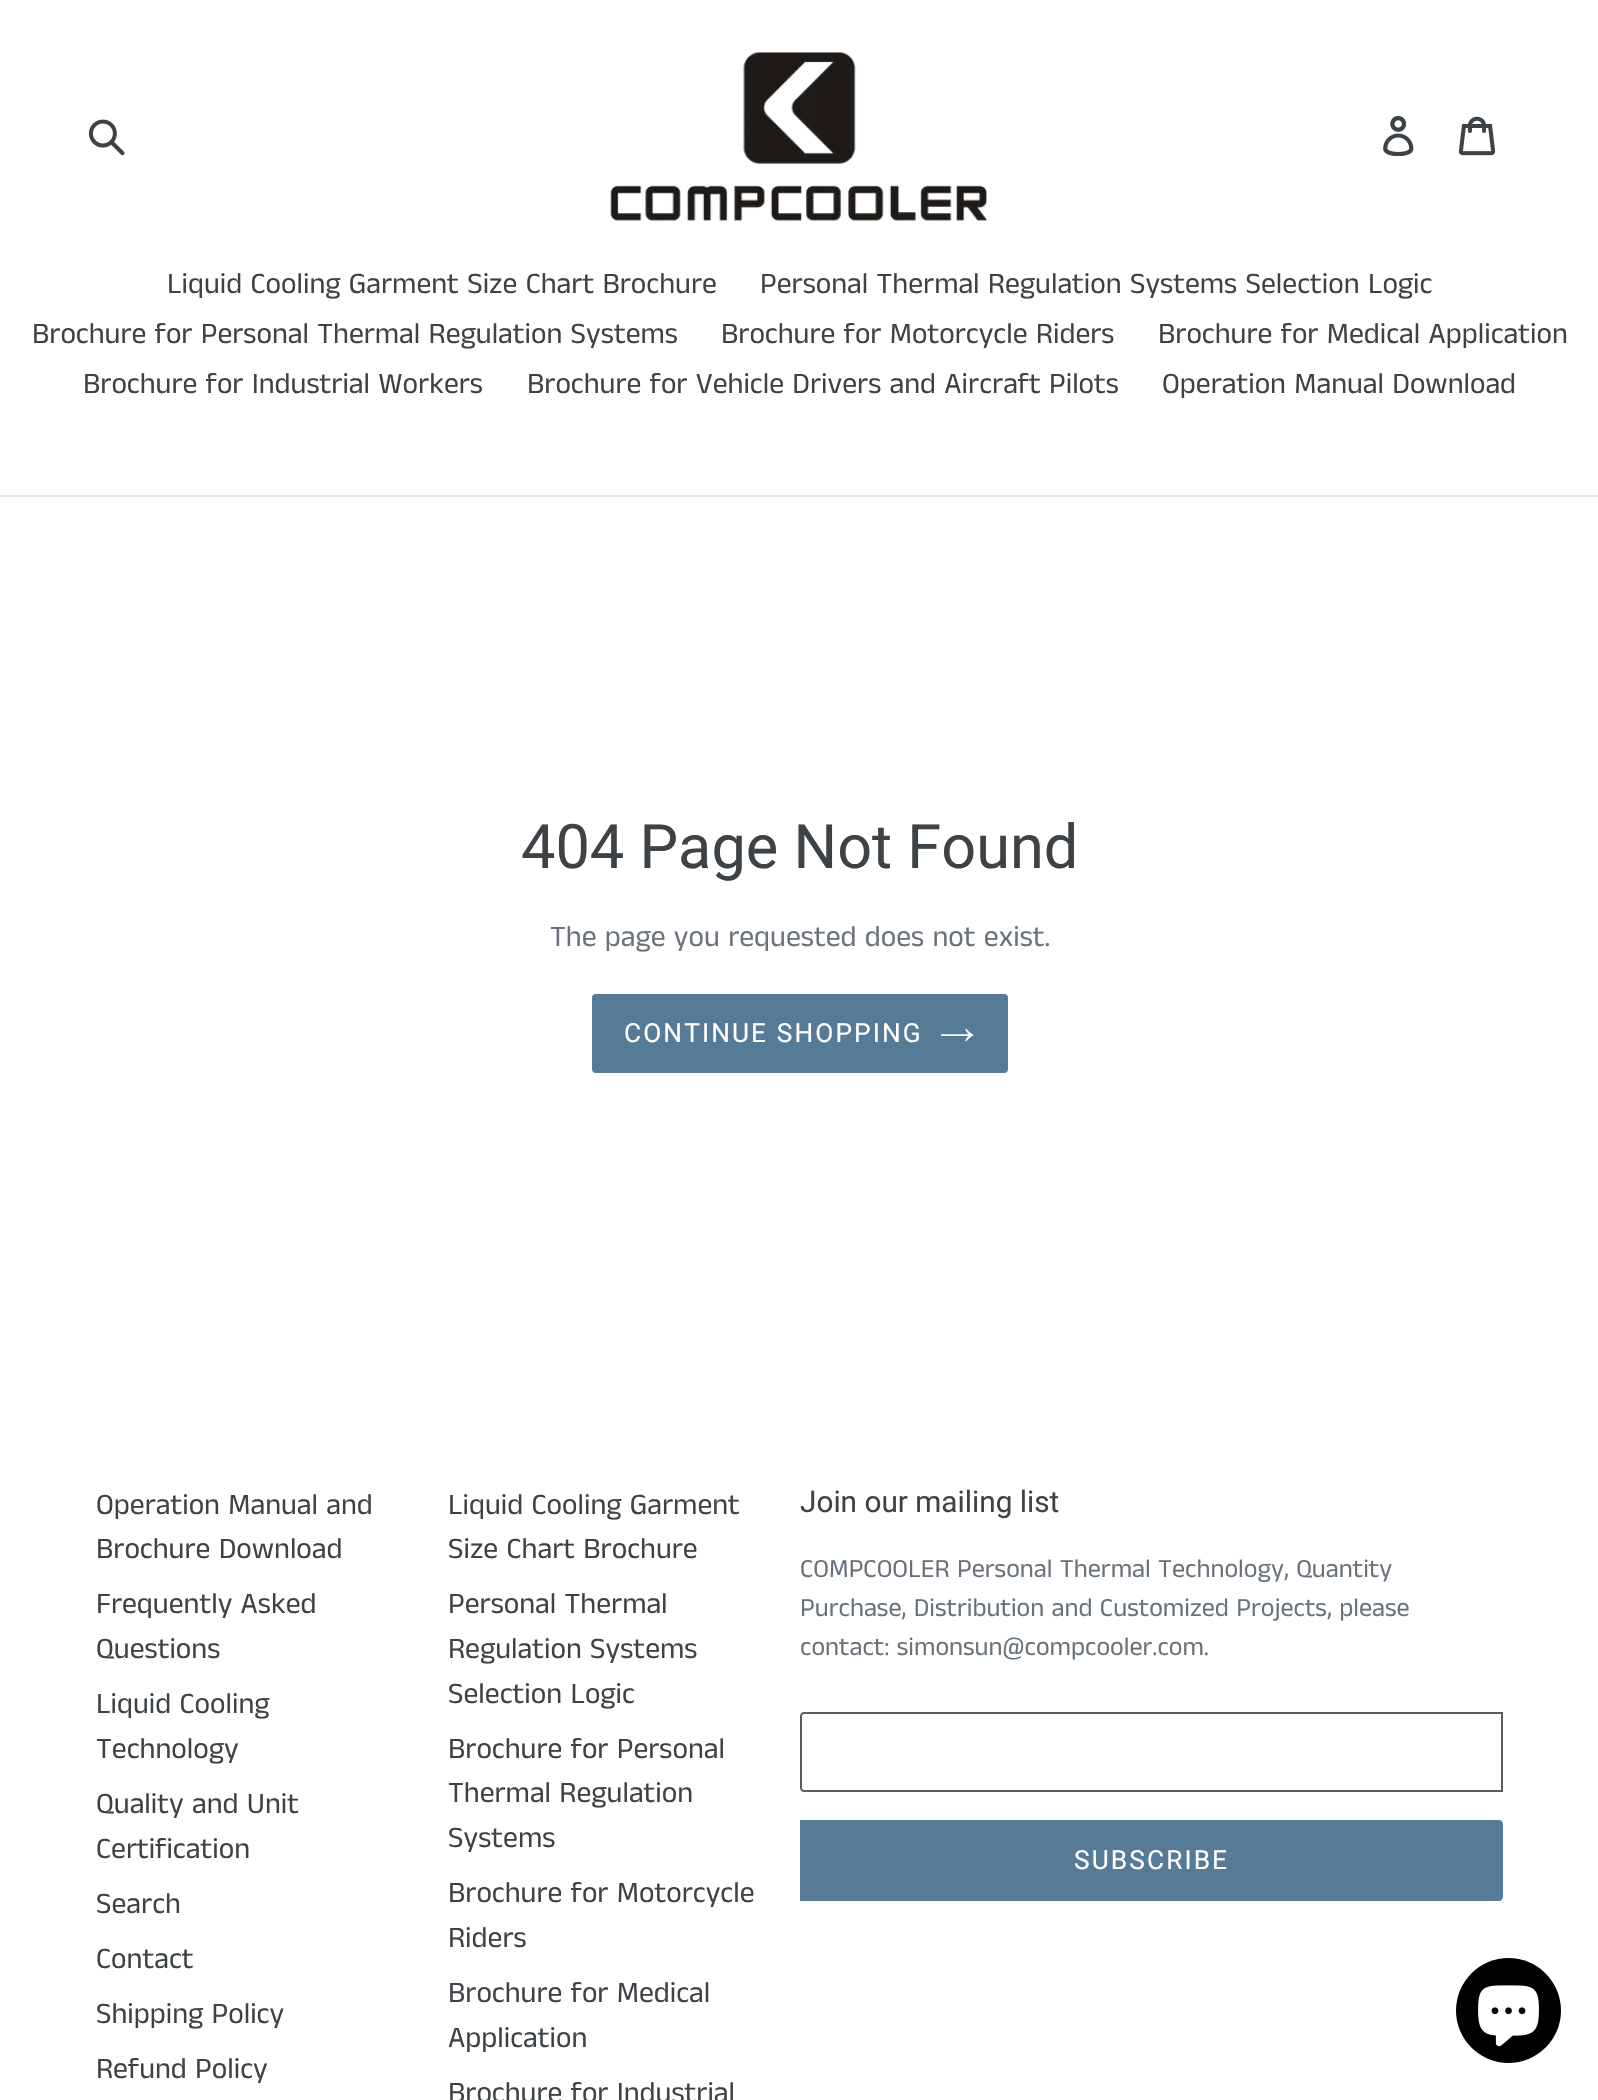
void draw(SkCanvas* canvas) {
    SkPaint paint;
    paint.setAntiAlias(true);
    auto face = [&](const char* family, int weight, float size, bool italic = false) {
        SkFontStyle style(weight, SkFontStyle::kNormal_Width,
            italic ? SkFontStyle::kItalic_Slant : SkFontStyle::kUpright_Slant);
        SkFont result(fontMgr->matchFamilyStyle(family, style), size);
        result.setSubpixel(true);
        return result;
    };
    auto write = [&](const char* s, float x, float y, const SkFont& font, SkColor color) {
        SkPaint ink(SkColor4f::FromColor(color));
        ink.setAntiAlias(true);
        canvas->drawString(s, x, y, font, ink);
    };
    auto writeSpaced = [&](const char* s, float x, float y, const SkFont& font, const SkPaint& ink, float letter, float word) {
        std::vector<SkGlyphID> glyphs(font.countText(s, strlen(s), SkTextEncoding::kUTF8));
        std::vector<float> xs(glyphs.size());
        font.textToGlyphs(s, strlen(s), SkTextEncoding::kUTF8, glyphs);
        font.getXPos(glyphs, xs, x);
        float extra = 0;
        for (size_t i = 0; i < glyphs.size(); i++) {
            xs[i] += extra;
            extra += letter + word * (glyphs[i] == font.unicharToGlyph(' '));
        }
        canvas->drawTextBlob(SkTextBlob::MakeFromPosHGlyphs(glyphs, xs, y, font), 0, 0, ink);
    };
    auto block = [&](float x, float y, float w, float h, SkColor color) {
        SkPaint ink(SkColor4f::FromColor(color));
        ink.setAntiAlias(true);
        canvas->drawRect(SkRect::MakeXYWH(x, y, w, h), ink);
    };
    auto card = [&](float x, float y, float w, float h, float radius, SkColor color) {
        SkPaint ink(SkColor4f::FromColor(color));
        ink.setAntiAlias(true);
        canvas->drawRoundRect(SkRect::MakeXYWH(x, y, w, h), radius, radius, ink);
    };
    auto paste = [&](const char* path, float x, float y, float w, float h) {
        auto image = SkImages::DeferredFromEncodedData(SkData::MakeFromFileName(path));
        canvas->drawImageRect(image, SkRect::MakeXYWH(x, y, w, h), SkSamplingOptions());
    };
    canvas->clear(SK_ColorWHITE);
    paste("pic1.png", 88, 119, 37, 37);
    paste("pic2.png", 610, 52, 377, 169);
    paste("pic3.png", 1383, 116, 31, 40);
    paste("pic4.png", 1458, 116, 38, 40);
    block(0, 495, 1598, 2, SkColorSetRGB(232, 233, 235));
    auto kFont1 = face("Anek Tamil", 400, 29.75f);
    write("Liquid Cooling Garment Size Chart Brochure", 167, 293, kFont1, SkColorSetRGB(61, 66, 70));
    write("Personal Thermal Regulation Systems Selection Logic", 760, 293, kFont1, SkColorSetRGB(61, 66, 70));
    write("Brochure for Personal Thermal Regulation Systems", 32, 343, kFont1, SkColorSetRGB(61, 66, 70));
    write("Brochure for Motorcycle Riders", 721, 343, kFont1, SkColorSetRGB(61, 66, 70));
    write("Brochure for Medical Application", 1158, 343, kFont1, SkColorSetRGB(61, 66, 70));
    write("Brochure for Industrial Workers", 83, 393, kFont1, SkColorSetRGB(61, 66, 70));
    write("Brochure for Vehicle Drivers and Aircraft Pilots", 527, 393, kFont1, SkColorSetRGB(61, 66, 70));
    write("Operation Manual Download", 1162, 393, kFont1, SkColorSetRGB(61, 66, 70));
    auto kFont2 = face("Roboto", 400, 61.25f);
    write("404 Page Not Found", 521, 868, kFont2, SkColorSetRGB(61, 66, 70));
    write("The page you requested does not exist.", 550, 946, kFont1, SkColorSetRGB(105, 114, 123));
    card(592, 994, 416, 79, 4, SkColorSetRGB(85, 123, 151));
    auto kFont3 = face("Roboto", 400, 26.25f);
    paint.setColor(SK_ColorWHITE);
    writeSpaced("CONTINUE SHOPPING", 624, 1042, kFont3, paint, 2.1f, 0);
    paste("pic5.png", 941, 1028, 33, 14);
    write("Operation Manual and", 96, 1514, kFont1, SkColorSetRGB(61, 66, 70));
    write("Brochure Download", 96, 1558, kFont1, SkColorSetRGB(61, 66, 70));
    write("Frequently Asked", 96, 1613, kFont1, SkColorSetRGB(61, 66, 70));
    write("Questions", 96, 1658, kFont1, SkColorSetRGB(61, 66, 70));
    write("Liquid Cooling", 96, 1713, kFont1, SkColorSetRGB(61, 66, 70));
    write("Technology", 96, 1758, kFont1, SkColorSetRGB(61, 66, 70));
    write("Quality and Unit", 96, 1813, kFont1, SkColorSetRGB(61, 66, 70));
    write("Certification", 96, 1858, kFont1, SkColorSetRGB(61, 66, 70));
    write("Search", 96, 1913, kFont1, SkColorSetRGB(61, 66, 70));
    write("Contact", 96, 1968, kFont1, SkColorSetRGB(61, 66, 70));
    write("Shipping Policy", 96, 2023, kFont1, SkColorSetRGB(61, 66, 70));
    write("Refund Policy", 96, 2078, kFont1, SkColorSetRGB(61, 66, 70));
    write("Liquid Cooling Garment", 448, 1514, kFont1, SkColorSetRGB(61, 66, 70));
    write("Size Chart Brochure", 448, 1558, kFont1, SkColorSetRGB(61, 66, 70));
    write("Personal Thermal", 448, 1613, kFont1, SkColorSetRGB(61, 66, 70));
    write("Regulation Systems", 448, 1658, kFont1, SkColorSetRGB(61, 66, 70));
    write("Selection Logic", 448, 1703, kFont1, SkColorSetRGB(61, 66, 70));
    write("Brochure for Personal", 448, 1758, kFont1, SkColorSetRGB(61, 66, 70));
    write("Thermal Regulation", 448, 1802, kFont1, SkColorSetRGB(61, 66, 70));
    write("Systems", 448, 1847, kFont1, SkColorSetRGB(61, 66, 70));
    write("Brochure for Motorcycle", 448, 1902, kFont1, SkColorSetRGB(61, 66, 70));
    write("Riders", 448, 1947, kFont1, SkColorSetRGB(61, 66, 70));
    write("Brochure for Medical", 448, 2002, kFont1, SkColorSetRGB(61, 66, 70));
    write("Application", 448, 2047, kFont1, SkColorSetRGB(61, 66, 70));
    write("Brochure for Industrial", 448, 2102, kFont1, SkColorSetRGB(61, 66, 70));
    auto kFont4 = face("Roboto", 400, 29.75f);
    write("Join our mailing list", 800, 1512, kFont4, SkColorSetRGB(61, 66, 70));
    auto kFont5 = face("Anek Tamil", 400, 26.25f);
    write("COMPCOOLER Personal Thermal Technology, Quantity", 800, 1577, kFont5, SkColorSetRGB(105, 114, 123));
    write("Purchase, Distribution and Customized Projects, please", 800, 1616, kFont5, SkColorSetRGB(105, 114, 123));
    write("contact: simonsun@compcooler.com.", 800, 1655, kFont5, SkColorSetRGB(105, 114, 123));
    paint.setStyle(SkPaint::kStroke_Style);
    paint.setStrokeWidth(2);
    paint.setColor(SkColorSetRGB(90, 94, 98));
    canvas->drawPath(SkPathBuilder().moveTo(804, 1713).lineTo(1502, 1713).lineTo(1502, 1791).lineTo(804, 1791).cubicTo(802.5f, 1791, 801, 1789.5f, 801, 1788).lineTo(801, 1716).cubicTo(801, 1714.5f, 802.5f, 1713, 804, 1713).close().detach(), paint);
    paint.setStyle(SkPaint::kFill_Style);
    paint.setColor(SkColorSetRGB(85, 123, 151));
    canvas->drawPath(SkPathBuilder().moveTo(800, 1820).lineTo(1499, 1820).cubicTo(1501, 1820, 1503, 1822, 1503, 1824).lineTo(1503, 1897).cubicTo(1503, 1899, 1501, 1901, 1499, 1901).lineTo(800, 1901).close().detach(), paint);
    paint.setColor(SK_ColorWHITE);
    writeSpaced("SUBSCRIBE", 1074, 1869, kFont3, paint, 2.1f, 0);
    paint.setColor(SK_ColorBLACK);
    canvas->drawCircle(1508.5f, 2010.5f, 52.5f, paint);
    paste("pic6.png", 1478, 1985, 61, 62);
}
